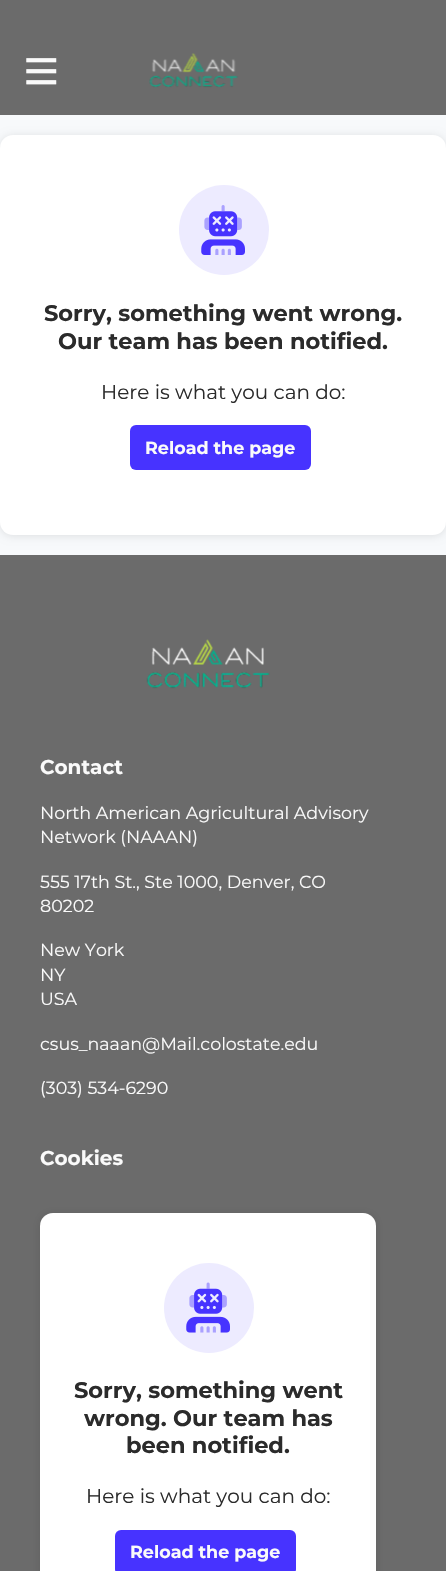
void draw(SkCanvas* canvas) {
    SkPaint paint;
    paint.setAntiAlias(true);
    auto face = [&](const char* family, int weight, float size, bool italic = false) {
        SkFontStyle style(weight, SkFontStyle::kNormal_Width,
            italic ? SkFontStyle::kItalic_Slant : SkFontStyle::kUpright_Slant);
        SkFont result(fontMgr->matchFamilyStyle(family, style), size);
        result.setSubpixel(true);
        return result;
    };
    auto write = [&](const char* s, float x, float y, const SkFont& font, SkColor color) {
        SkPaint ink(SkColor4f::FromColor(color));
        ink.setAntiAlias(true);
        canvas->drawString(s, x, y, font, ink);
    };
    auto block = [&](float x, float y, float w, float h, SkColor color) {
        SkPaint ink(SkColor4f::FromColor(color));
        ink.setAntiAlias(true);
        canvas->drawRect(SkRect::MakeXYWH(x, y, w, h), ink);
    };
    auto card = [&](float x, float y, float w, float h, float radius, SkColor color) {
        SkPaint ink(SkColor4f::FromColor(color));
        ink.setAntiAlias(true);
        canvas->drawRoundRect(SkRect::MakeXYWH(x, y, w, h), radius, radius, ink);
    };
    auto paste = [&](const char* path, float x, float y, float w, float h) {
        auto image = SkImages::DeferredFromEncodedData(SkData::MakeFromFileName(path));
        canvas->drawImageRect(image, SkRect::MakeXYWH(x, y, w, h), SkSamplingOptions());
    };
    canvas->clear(SkColorSetRGB(247, 249, 251));
    block(0, 0, 446, 115, SkColorSetRGB(107, 107, 107));
    paste("pic1.png", 26, 58, 31, 27);
    paste("pic2.png", 149, 53, 90, 35);
    paint.setColor(SkColorSetARGB(26, 0, 0, 0));
    paint.setMaskFilter(SkMaskFilter::MakeBlur(kNormal_SkBlurStyle, 4));
    canvas->drawRoundRect(SkRect::MakeXYWH(0, 136, 446, 400), 13, 13, paint);
    paint.setMaskFilter(nullptr);
    card(0, 135, 446, 400, 13, SK_ColorWHITE);
    paint.setColor(SkColorSetRGB(237, 235, 255));
    canvas->drawCircle(224, 230, 45, paint);
    paste("pic3.png", 201, 205, 44, 50);
    auto kFont1 = face("Montserrat", 100, 22.5f);
    write("Sorry, something went wrong.", 44, 321, kFont1, SkColorSetRGB(43, 43, 43));
    write("Our team has been notified.", 58, 349, kFont1, SkColorSetRGB(43, 43, 43));
    auto kFont2 = face("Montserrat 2", 100, 20);
    write("Here is what you can do:", 101, 399, kFont2, SkColorSetRGB(43, 43, 43));
    card(130, 425, 181, 45, 6, SkColorSetRGB(71, 51, 255));
    auto kFont3 = face("Montserrat", 100, 17.5f);
    write("Reload the page", 145, 454, kFont3, SkColorSetRGB(250, 250, 250));
    block(0, 555, 446, 1016, SkColorSetRGB(107, 107, 107));
    paste("pic4.png", 146, 639, 124, 50);
    auto kFont4 = face("Montserrat", 100, 20);
    write("Contact", 40, 774, kFont4, SkColorSetRGB(250, 250, 250));
    auto kFont5 = face("Montserrat 2", 100, 17.5f);
    write("North American Agricultural Advisory", 40, 819, kFont5, SkColorSetRGB(250, 250, 250));
    write("Network (NAAAN)", 40, 843, kFont5, SkColorSetRGB(250, 250, 250));
    write("555 17th St., Ste 1000, Denver, CO", 40, 888, kFont5, SkColorSetRGB(250, 250, 250));
    write("80202", 40, 912, kFont5, SkColorSetRGB(250, 250, 250));
    write("New York", 40, 956, kFont5, SkColorSetRGB(250, 250, 250));
    write("NY", 40, 981, kFont5, SkColorSetRGB(250, 250, 250));
    write("USA", 40, 1005, kFont5, SkColorSetRGB(250, 250, 250));
    write("csus_naaan@Mail.colostate.edu", 40, 1050, kFont5, SkColorSetRGB(250, 250, 250));
    write("(303) 534-6290", 40, 1094, kFont5, SkColorSetRGB(250, 250, 250));
    write("Cookies", 40, 1165, kFont4, SkColorSetRGB(250, 250, 250));
    paint.setColor(SkColorSetARGB(26, 0, 0, 0));
    paint.setMaskFilter(SkMaskFilter::MakeBlur(kNormal_SkBlurStyle, 4));
    canvas->drawRoundRect(SkRect::MakeXYWH(40, 1214, 336, 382), 13, 13, paint);
    paint.setMaskFilter(nullptr);
    card(40, 1213, 336, 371, 13, SK_ColorWHITE);
    paint.setColor(SkColorSetRGB(237, 235, 255));
    canvas->drawCircle(209, 1308, 45, paint);
    paste("pic5.png", 186, 1282, 44, 51);
    write("Sorry, something went", 74, 1398, kFont1, SkColorSetRGB(43, 43, 43));
    write("wrong. Our team has", 84, 1426, kFont1, SkColorSetRGB(43, 43, 43));
    write("been notified.", 126, 1453, kFont1, SkColorSetRGB(43, 43, 43));
    write("Here is what you can do:", 86, 1503, kFont2, SkColorSetRGB(43, 43, 43));
    card(115, 1530, 181, 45, 6, SkColorSetRGB(71, 51, 255));
    write("Reload the page", 130, 1558, kFont3, SkColorSetRGB(250, 250, 250));
}
